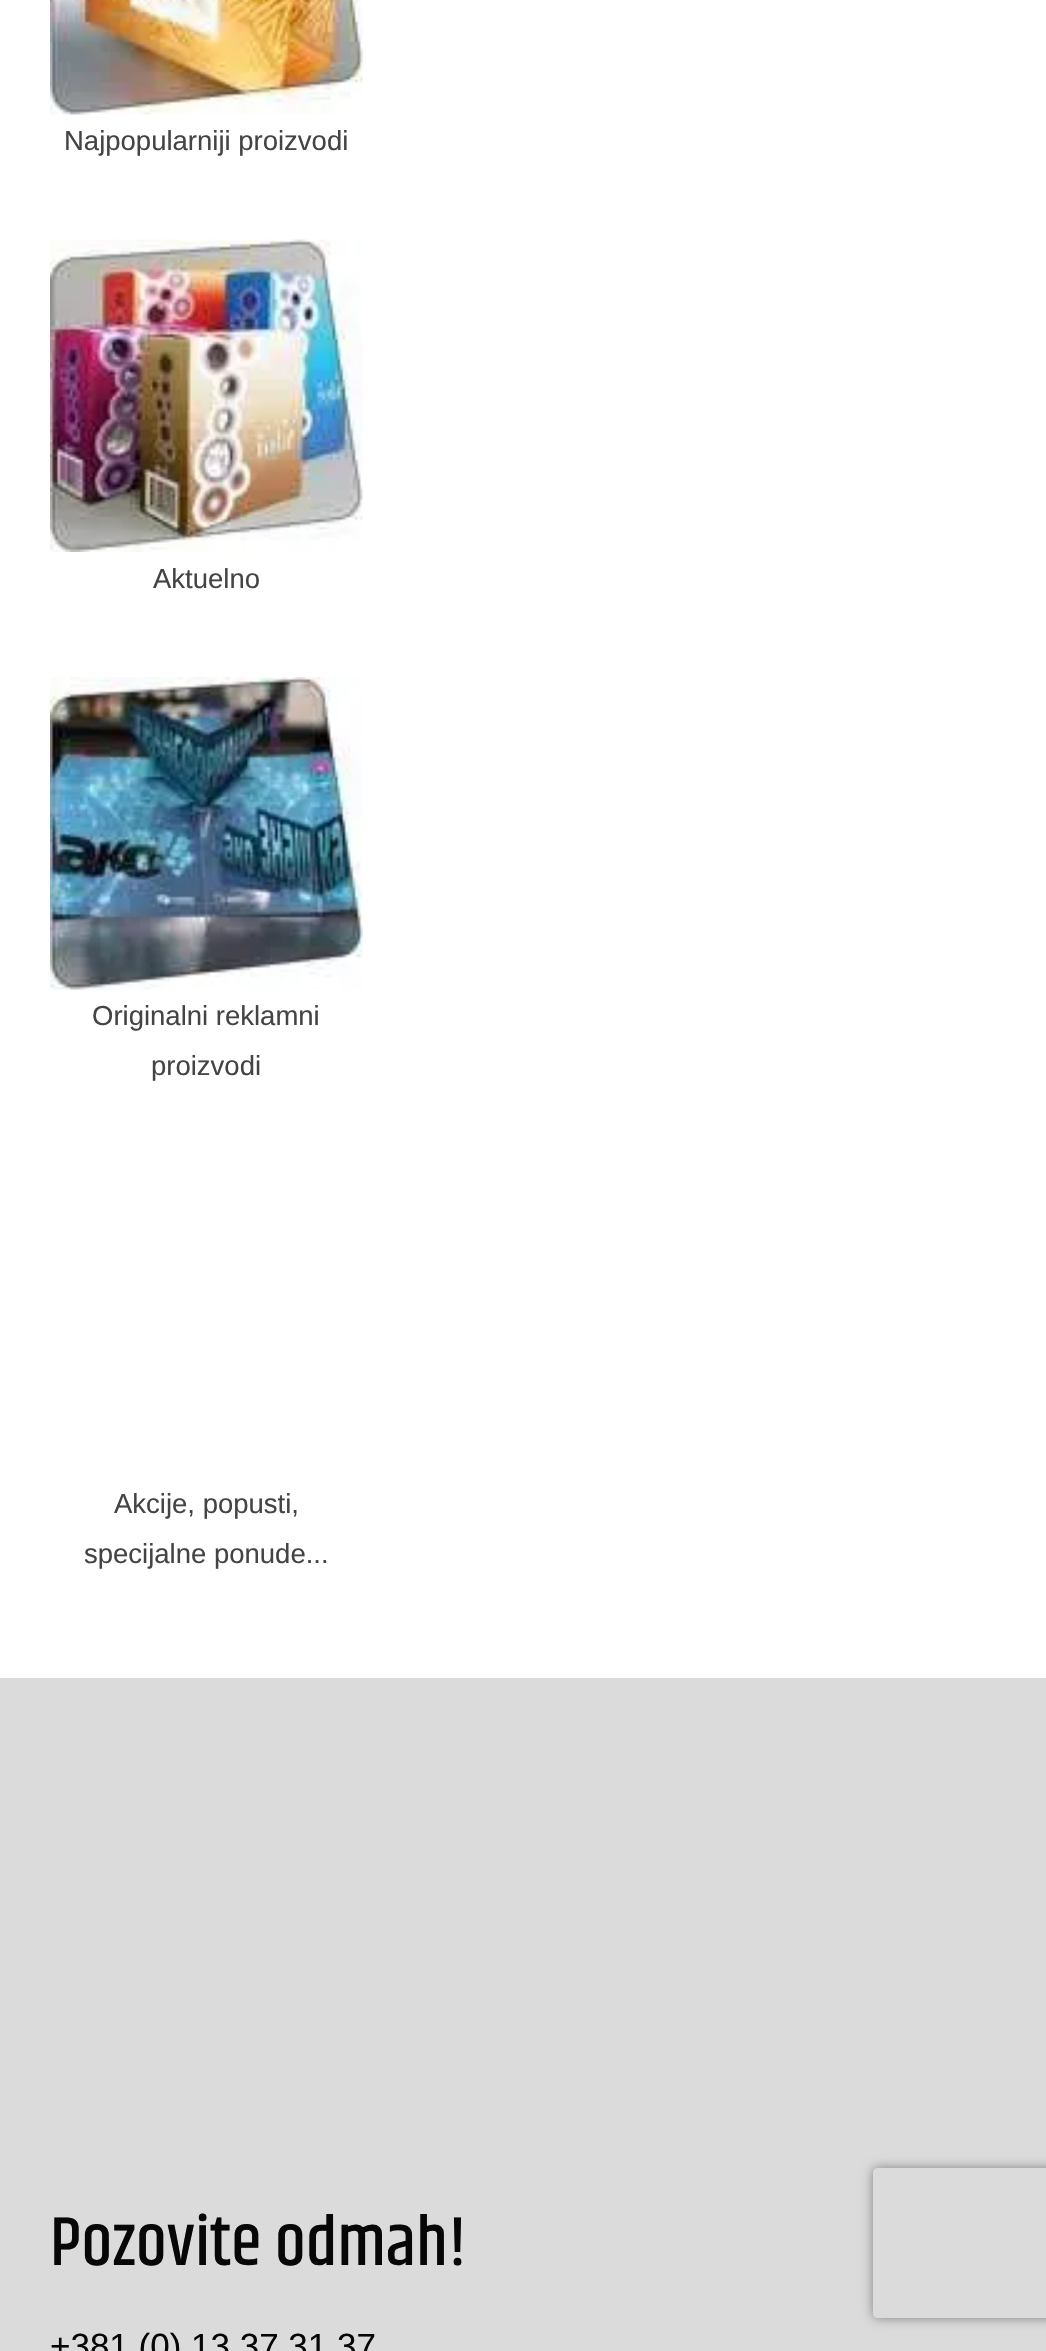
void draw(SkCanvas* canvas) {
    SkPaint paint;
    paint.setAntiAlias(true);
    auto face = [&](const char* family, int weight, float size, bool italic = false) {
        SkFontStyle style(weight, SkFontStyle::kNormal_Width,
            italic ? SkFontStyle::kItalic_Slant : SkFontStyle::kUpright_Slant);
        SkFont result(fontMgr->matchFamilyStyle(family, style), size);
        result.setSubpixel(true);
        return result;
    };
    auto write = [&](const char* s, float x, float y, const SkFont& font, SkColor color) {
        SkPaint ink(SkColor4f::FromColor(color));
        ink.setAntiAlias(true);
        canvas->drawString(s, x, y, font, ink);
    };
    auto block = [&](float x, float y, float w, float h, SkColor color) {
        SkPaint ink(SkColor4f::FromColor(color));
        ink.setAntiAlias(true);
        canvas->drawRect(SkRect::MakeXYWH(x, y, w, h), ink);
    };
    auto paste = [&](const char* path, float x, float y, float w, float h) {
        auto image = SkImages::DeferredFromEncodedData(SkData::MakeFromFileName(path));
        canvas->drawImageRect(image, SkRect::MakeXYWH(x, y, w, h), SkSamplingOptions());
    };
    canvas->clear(SK_ColorWHITE);
    paste("pic1.png", 50, 0, 313, 115);
    auto kFont1 = face("Liberation Sans", 400, 27.5f);
    write("Najpopularniji proizvodi", 64, 150, kFont1, SkColorSetRGB(68, 68, 68));
    paste("pic2.png", 50, 239, 313, 313);
    write("Aktuelno", 153, 588, kFont1, SkColorSetRGB(68, 68, 68));
    paste("pic3.png", 50, 677, 313, 313);
    write("Originalni reklamni", 92, 1025, kFont1, SkColorSetRGB(68, 68, 68));
    write("proizvodi", 151, 1075, kFont1, SkColorSetRGB(68, 68, 68));
    write("Akcije, popusti,", 114, 1513, kFont1, SkColorSetRGB(68, 68, 68));
    write("specijalne ponude...", 84, 1563, kFont1, SkColorSetRGB(68, 68, 68));
    block(0, 1678, 1046, 673, SkColorSetRGB(219, 219, 219));
    auto kFont2 = face("Khand", 500, 70);
    write("Pozovite odmah!", 50, 2265, kFont2, SkColorSetRGB(7, 7, 7));
    auto kFont3 = face("Liberation Sans", 400, 35);
    write("+381 (0) 13 37 31 37", 50, 2358, kFont3, SkColorSetRGB(7, 7, 7));
    canvas->save();
    canvas->clipPath(SkPathBuilder(SkPathFillType::kEvenOdd).moveTo(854, 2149).lineTo(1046, 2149).lineTo(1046, 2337).lineTo(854, 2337).close().moveTo(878, 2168).lineTo(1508, 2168).cubicTo(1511, 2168, 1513, 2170, 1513, 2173).lineTo(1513, 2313).cubicTo(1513, 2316, 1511, 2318, 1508, 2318).lineTo(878, 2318).cubicTo(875, 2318, 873, 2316, 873, 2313).lineTo(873, 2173).cubicTo(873, 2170, 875, 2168, 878, 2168).close().detach(), true);
    paint.setColor(SkColorSetRGB(128, 128, 128));
    paint.setMaskFilter(SkMaskFilter::MakeBlur(kNormal_SkBlurStyle, 6));
    canvas->drawRoundRect(SkRect::MakeXYWH(873, 2168, 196, 150), 5, 5, paint);
    paint.setMaskFilter(nullptr);
    canvas->restore();
}
